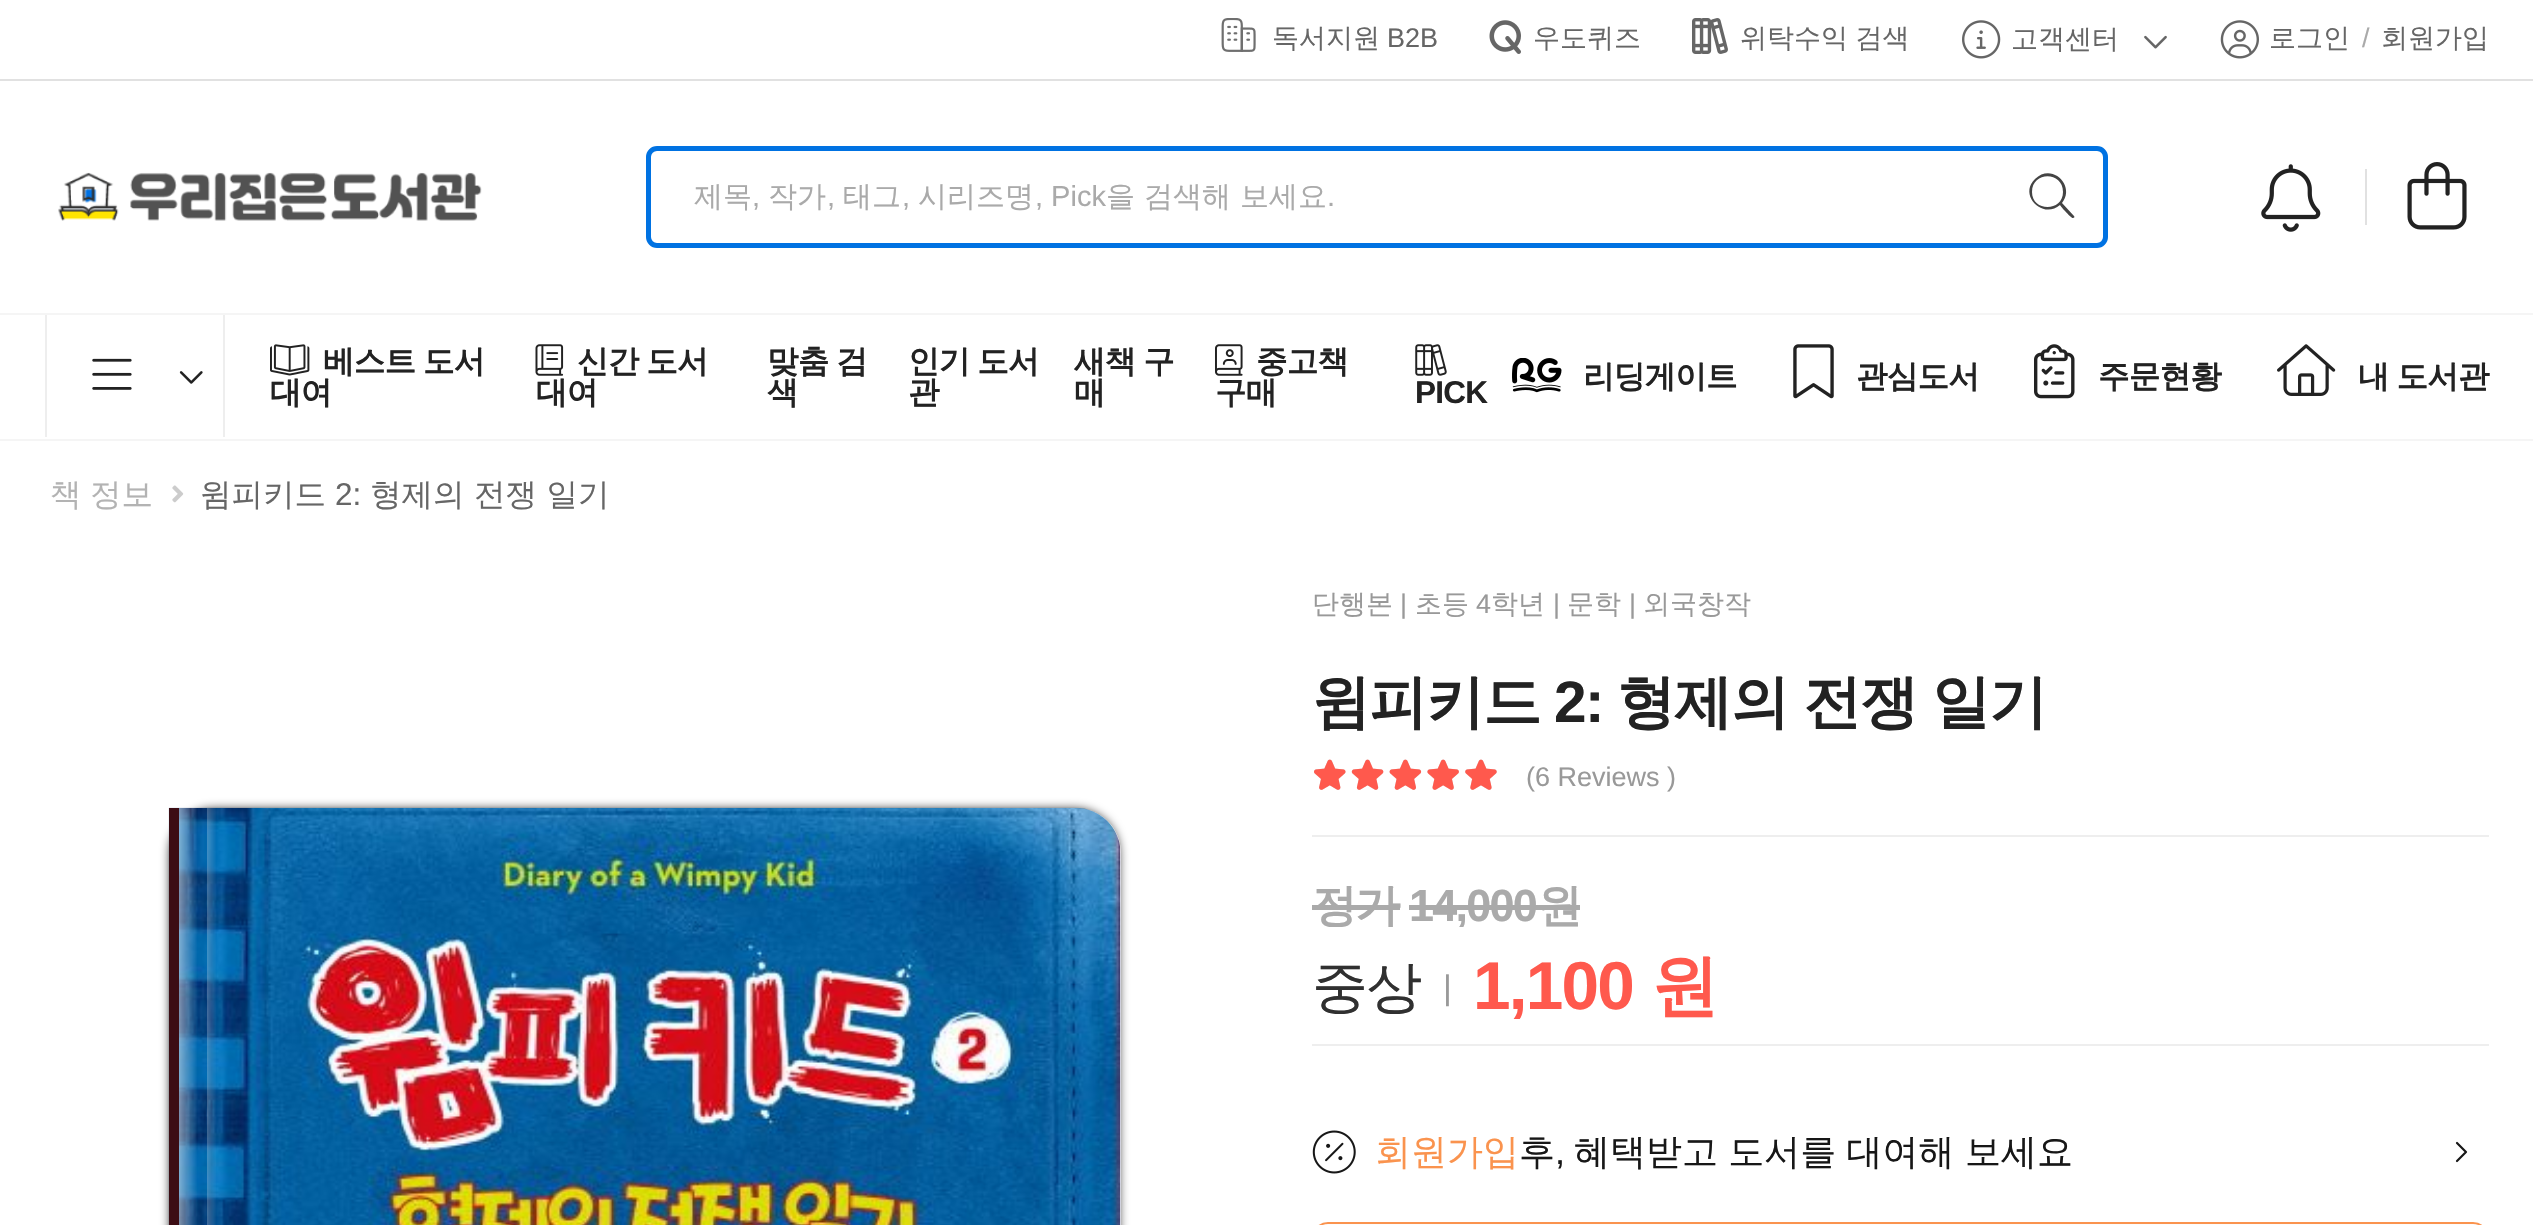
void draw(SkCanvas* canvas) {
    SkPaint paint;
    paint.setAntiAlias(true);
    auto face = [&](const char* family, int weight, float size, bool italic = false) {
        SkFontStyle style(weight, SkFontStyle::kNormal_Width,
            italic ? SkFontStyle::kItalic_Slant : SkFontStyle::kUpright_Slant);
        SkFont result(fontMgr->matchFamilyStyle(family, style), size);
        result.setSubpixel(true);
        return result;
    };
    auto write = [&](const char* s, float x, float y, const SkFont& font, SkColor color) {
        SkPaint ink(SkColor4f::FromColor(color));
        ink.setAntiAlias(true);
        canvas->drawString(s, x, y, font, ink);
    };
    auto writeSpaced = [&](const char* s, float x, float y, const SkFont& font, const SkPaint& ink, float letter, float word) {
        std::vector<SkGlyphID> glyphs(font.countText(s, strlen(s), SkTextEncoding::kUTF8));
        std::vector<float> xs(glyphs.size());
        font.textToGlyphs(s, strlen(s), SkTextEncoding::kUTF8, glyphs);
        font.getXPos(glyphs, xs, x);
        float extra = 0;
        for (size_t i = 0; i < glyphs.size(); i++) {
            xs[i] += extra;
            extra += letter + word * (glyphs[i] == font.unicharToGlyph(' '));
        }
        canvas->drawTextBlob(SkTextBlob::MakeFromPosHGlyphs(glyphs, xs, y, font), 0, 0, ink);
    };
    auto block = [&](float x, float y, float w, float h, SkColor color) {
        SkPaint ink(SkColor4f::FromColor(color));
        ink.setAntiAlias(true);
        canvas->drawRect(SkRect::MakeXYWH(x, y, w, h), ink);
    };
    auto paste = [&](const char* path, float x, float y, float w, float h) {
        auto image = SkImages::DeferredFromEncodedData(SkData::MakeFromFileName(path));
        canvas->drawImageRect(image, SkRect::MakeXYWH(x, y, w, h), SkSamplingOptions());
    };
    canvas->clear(SK_ColorWHITE);
    block(0, 439, 2533, 2, SkColorSetRGB(245, 245, 245));
    block(0, 79, 2533, 2, SkColorSetRGB(225, 225, 225));
    paste("pic1.png", 1221, 18, 35, 34);
    auto kFont1 = face("WenQuanYi Zen Hei", 500, 27);
    write("독서지원", 1272, 47, kFont1, SkColorSetRGB(102, 102, 102));
    auto kFont2 = face("Liberation Sans", 400, 27);
    write("B2B", 1387, 47, kFont2, SkColorSetRGB(102, 102, 102));
    paste("pic2.png", 1489, 20, 32, 34);
    write("우도퀴즈", 1533, 47, kFont1, SkColorSetRGB(102, 102, 102));
    paste("pic3.png", 1692, 18, 36, 36);
    paint.setColor(SkColorSetRGB(102, 102, 102));
    writeSpaced("위탁수익 검색", 1740, 47, kFont1, paint, 0, -0.5f);
    paste("pic4.png", 1962, 20, 39, 39);
    write("고객센터", 2011, 48, kFont1, SkColorSetRGB(102, 102, 102));
    paste("pic5.png", 2144, 35, 23, 14);
    paste("pic6.png", 2220, 20, 39, 39);
    write("로그인", 2269, 47, kFont1, SkColorSetRGB(102, 102, 102));
    write("/", 2362, 47, kFont2, SkColorSetRGB(170, 170, 170));
    write("회원가입", 2381, 47, kFont1, SkColorSetRGB(102, 102, 102));
    paste("pic7.png", 58, 172, 424, 49);
    paint.setStyle(SkPaint::kStroke_Style);
    paint.setStrokeWidth(5);
    paint.setColor(SkColorSetRGB(0, 114, 226));
    canvas->drawRoundRect(SkRect::MakeXYWH(648.5f, 148.5f, 1457, 97), 8.5f, 8.5f, paint);
    auto kFont3 = face("WenQuanYi Zen Hei", 500, 29);
    write("제목", 694, 206, kFont3, SkColorSetRGB(170, 170, 170));
    auto kFont4 = face("Liberation Sans", 400, 29);
    write(",", 752, 206, kFont4, SkColorSetRGB(170, 170, 170));
    write("작가", 768, 206, kFont3, SkColorSetRGB(170, 170, 170));
    write(",", 827, 206, kFont4, SkColorSetRGB(170, 170, 170));
    write("태그", 843, 206, kFont3, SkColorSetRGB(170, 170, 170));
    write(",", 902, 206, kFont4, SkColorSetRGB(170, 170, 170));
    write("시리즈명", 918, 206, kFont3, SkColorSetRGB(170, 170, 170));
    write(", Pick", 1035, 206, kFont4, SkColorSetRGB(170, 170, 170));
    write("을", 1106, 206, kFont3, SkColorSetRGB(170, 170, 170));
    write("검색해", 1144, 206, kFont3, SkColorSetRGB(170, 170, 170));
    write("보세요", 1240, 206, kFont3, SkColorSetRGB(170, 170, 170));
    write(".", 1327, 206, kFont4, SkColorSetRGB(170, 170, 170));
    paint.setStyle(SkPaint::kFill_Style);
    paint.setColor(SkColorSetRGB(68, 68, 68));
    canvas->drawPath(SkPathBuilder().moveTo(2063, 192).cubicTo(2063, 171, 2032, 171, 2032, 192).cubicTo(2032, 212, 2063, 212, 2063, 192).close().moveTo(2060, 205).cubicTo(2043, 220, 2018, 195, 2035, 179).cubicTo(2052, 162, 2076, 186, 2062, 203).lineTo(2074, 216).cubicTo(2075, 217, 2074, 218, 2073, 218).cubicTo(2072, 219, 2061, 207, 2060, 205).close().detach(), paint);
    paste("pic8.png", 2261, 164, 60, 68);
    block(2365, 169, 2, 56, SkColorSetRGB(225, 225, 225));
    paste("pic9.png", 2407, 162, 60, 68);
    block(0, 313, 2533, 2, SkColorSetRGB(245, 245, 245));
    block(223, 315, 2, 122, SkColorSetRGB(238, 238, 238));
    block(45, 315, 2, 122, SkColorSetRGB(238, 238, 238));
    paste("pic10.png", 92, 358, 40, 32);
    paste("pic11.png", 179, 371, 24, 13);
    paste("pic12.png", 270, 344, 40, 32);
    auto kFont5 = face("WenQuanYi Zen Hei", 700, 31.5f);
    paint.setColor(SkColorSetRGB(34, 34, 34));
    writeSpaced("베스트 도서", 323, 372, kFont5, paint, -0.75f, -1);
    writeSpaced("대여", 270, 403, kFont5, paint, -0.75f, 0);
    paste("pic13.png", 535, 344, 29, 32);
    writeSpaced("신간 도서", 577, 372, kFont5, paint, -0.75f, -1);
    writeSpaced("대여", 536, 403, kFont5, paint, -0.75f, 0);
    writeSpaced("맞춤 검", 767, 372, kFont5, paint, -0.75f, -1);
    writeSpaced("색", 767, 403, kFont5, paint, -0.75f, 0);
    writeSpaced("인기 도서", 908, 372, kFont5, paint, -0.75f, -1);
    writeSpaced("관", 908, 403, kFont5, paint, -0.75f, 0);
    writeSpaced("새책 구", 1074, 372, kFont5, paint, -0.75f, -1);
    writeSpaced("매", 1074, 403, kFont5, paint, -0.75f, 0);
    paste("pic14.png", 1215, 344, 28, 32);
    writeSpaced("중고책", 1256, 372, kFont5, paint, -0.75f, 0);
    writeSpaced("구매", 1215, 403, kFont5, paint, -0.75f, 0);
    paste("pic15.png", 1415, 344, 32, 32);
    auto kFont6 = face("Liberation Sans", 700, 31.5f);
    writeSpaced("PICK", 1415, 403, kFont6, paint, -0.75f, 0);
    paste("pic16.png", 1512, 358, 50, 35);
    writeSpaced("리딩게이트", 1583, 387, kFont5, paint, -0.75f, 0);
    paste("pic17.png", 1793, 344, 41, 55);
    writeSpaced("관심도서", 1856, 387, kFont5, paint, -0.75f, 0);
    paste("pic18.png", 2034, 344, 41, 55);
    writeSpaced("주문현황", 2098, 387, kFont5, paint, -0.75f, 0);
    paste("pic19.png", 2277, 344, 59, 52);
    writeSpaced("내 도서관", 2358, 387, kFont5, paint, -0.75f, -1);
    auto kFont7 = face("WenQuanYi Zen Hei", 500, 31.5f);
    paint.setColor(SkColorSetRGB(179, 179, 179));
    writeSpaced("책 정보", 50, 505, kFont7, paint, 0, -1);
    paste("pic20.png", 172, 485, 12, 18);
    write("윔피키드", 200, 505, kFont7, SkColorSetRGB(102, 102, 102));
    auto kFont8 = face("Liberation Sans", 400, 31.5f);
    write("2:", 335, 505, kFont8, SkColorSetRGB(102, 102, 102));
    write("형제의 전쟁 일기", 370, 505, kFont7, SkColorSetRGB(102, 102, 102));
    paste("pic21.png", 168, 807, 953, 418);
    canvas->save();
    canvas->clipPath(SkPathBuilder(SkPathFillType::kEvenOdd).moveTo(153, 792).lineTo(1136, 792).lineTo(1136, 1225).lineTo(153, 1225).close().moveTo(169, 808).lineTo(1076, 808).cubicTo(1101, 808, 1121, 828, 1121, 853).lineTo(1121, 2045).cubicTo(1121, 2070, 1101, 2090, 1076, 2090).lineTo(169, 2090).close().detach(), true);
    paint.setColor(SK_ColorBLACK);
    paint.setMaskFilter(SkMaskFilter::MakeBlur(kNormal_SkBlurStyle, 5.5f));
    canvas->drawRoundRect(SkRect::MakeXYWH(171, 810, 947, 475), 43, 43, paint);
    paint.setMaskFilter(nullptr);
    canvas->restore();
    {
        const SkColor colors[] = {SkColorSetRGB(60, 13, 20), SkColorSetARGB(128, 255, 255, 255), SkColorSetARGB(64, 255, 255, 255), SkColorSetARGB(64, 255, 255, 255), SkColorSetARGB(0, 255, 255, 255), SkColorSetARGB(0, 255, 255, 255), SkColorSetARGB(64, 255, 255, 255), SkColorSetARGB(0, 255, 255, 255)};
        const float stops[] = {0.01f, 0.01f, 0.02f, 0.02f, 0.03f, 0.04f, 0.04f, 0.05f};
        const SkPoint ends[] = {{169, 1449}, {1121, 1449}};
        paint.setShader(SkGradientShader::MakeLinear(ends, colors, stops, 8, SkTileMode::kClamp));
        paint.setAlpha(255);
    }
    canvas->drawRect(SkRect::MakeXYWH(169, 808, 47, 417), paint);
    write("단행본", 1312, 613, kFont1, SkColorSetRGB(153, 153, 153));
    write("|", 1400, 613, kFont2, SkColorSetRGB(153, 153, 153));
    write("초등", 1415, 613, kFont1, SkColorSetRGB(153, 153, 153));
    write("4", 1476, 613, kFont2, SkColorSetRGB(153, 153, 153));
    write("학년", 1491, 613, kFont1, SkColorSetRGB(153, 153, 153));
    write("|", 1553, 613, kFont2, SkColorSetRGB(153, 153, 153));
    write("문학", 1567, 613, kFont1, SkColorSetRGB(153, 153, 153));
    write("|", 1629, 613, kFont2, SkColorSetRGB(153, 153, 153));
    write("외국창작", 1643, 613, kFont1, SkColorSetRGB(153, 153, 153));
    auto kFont9 = face("WenQuanYi Zen Hei", 700, 58.5f);
    paint.setShader(nullptr);
    paint.setColor(SkColorSetRGB(34, 34, 34));
    writeSpaced("윔피키드", 1312, 722, kFont9, paint, -1.5f, 0);
    auto kFont10 = face("Liberation Sans", 700, 58.5f);
    writeSpaced("2:", 1554, 722, kFont10, paint, -1.5f, 0);
    writeSpaced("형제의 전쟁 일기", 1617, 722, kFont9, paint, -1.5f, -1);
    paste("pic22.png", 1314, 759, 183, 31);
    paste("pic23.png", 1314, 759, 183, 31);
    write("(6 Reviews )", 1526, 786, kFont2, SkColorSetRGB(153, 153, 153));
    block(1312, 835, 1177, 2, SkColorSetRGB(238, 238, 238));
    canvas->save();
    canvas->clipRect(SkRect::MakeXYWH(1312, 882, 1177, 45));
    auto kFont11 = face("WenQuanYi Zen Hei", 700, 45);
    paint.setColor(SkColorSetRGB(170, 170, 170));
    writeSpaced("정가", 1312, 921, kFont11, paint, -1.75f, 0);
    canvas->restore();
    block(1312, 905, 88, 5, SkColorSetRGB(170, 170, 170));
    canvas->save();
    canvas->clipRect(SkRect::MakeXYWH(1312, 882, 1177, 45));
    auto kFont12 = face("Liberation Sans", 700, 45);
    writeSpaced("14,000", 1409, 921, kFont12, paint, -1.75f, 0);
    canvas->restore();
    block(1409, 905, 128, 5, SkColorSetRGB(170, 170, 170));
    writeSpaced("원", 1537, 921, kFont11, paint, -1.75f, 0);
    block(1537, 905, 43, 5, SkColorSetRGB(170, 170, 170));
    auto kFont13 = face("WenQuanYi Zen Hei", 500, 56);
    paint.setColor(SkColorSetRGB(48, 48, 48));
    writeSpaced("중상", 1312, 1006, kFont13, paint, -1.75f, 0);
    auto kFont14 = face("Liberation Sans", 400, 34);
    paint.setColor(SkColorSetRGB(153, 153, 153));
    writeSpaced("|", 1443, 999, kFont14, paint, -1.75f, 0);
    canvas->save();
    canvas->clipRect(SkRect::MakeXYWH(1312, 952, 1177, 67));
    auto kFont15 = face("Liberation Sans", 700, 67.5f);
    paint.setColor(SkColorSetRGB(255, 89, 77));
    writeSpaced("1,100", 1473, 1009, kFont15, paint, -1.75f, 0);
    canvas->restore();
    auto kFont16 = face("WenQuanYi Zen Hei", 700, 67.5f);
    writeSpaced("원", 1651, 1009, kFont16, paint, -1.75f, 0);
    block(1312, 1044, 1177, 2, SkColorSetRGB(238, 238, 238));
    paste("pic24.png", 1312, 1130, 44, 44);
    auto kFont17 = face("WenQuanYi Zen Hei", 500, 36);
    write("회원가입", 1375, 1164, kFont17, SkColorSetRGB(250, 147, 78));
    write("후", 1519, 1164, kFont17, SkColorSetRGB(23, 23, 23));
    auto kFont18 = face("Liberation Sans", 400, 36);
    write(",", 1555, 1164, kFont18, SkColorSetRGB(23, 23, 23));
    paint.setColor(SkColorSetRGB(23, 23, 23));
    writeSpaced("혜택받고 도서를 대여해 보세요", 1574, 1164, kFont17, paint, 0, -0.5f);
    paint.setStyle(SkPaint::kStroke_Style);
    paint.setStrokeWidth(2.2f);
    paint.setStrokeCap(SkPaint::kRound_Cap);
    paint.setStrokeJoin(SkPaint::kRound_Join);
    canvas->drawPath(SkPathBuilder().moveTo(2457, 1161).lineTo(2466, 1152).lineTo(2457, 1143).detach(), paint);
    paint.setStyle(SkPaint::kFill_Style);
    paint.setColor(SkColorSetRGB(254, 252, 251));
    canvas->drawRoundRect(SkRect::MakeXYWH(1313, 1223, 1175, 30), 26, 26, paint);
    paint.setStyle(SkPaint::kStroke_Style);
    paint.setStrokeWidth(2);
    paint.setStrokeCap(SkPaint::kButt_Cap);
    paint.setStrokeJoin(SkPaint::kMiter_Join);
    paint.setColor(SkColorSetRGB(250, 147, 78));
    canvas->drawRoundRect(SkRect::MakeXYWH(1313, 1223, 1175, 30), 26, 26, paint);
}
